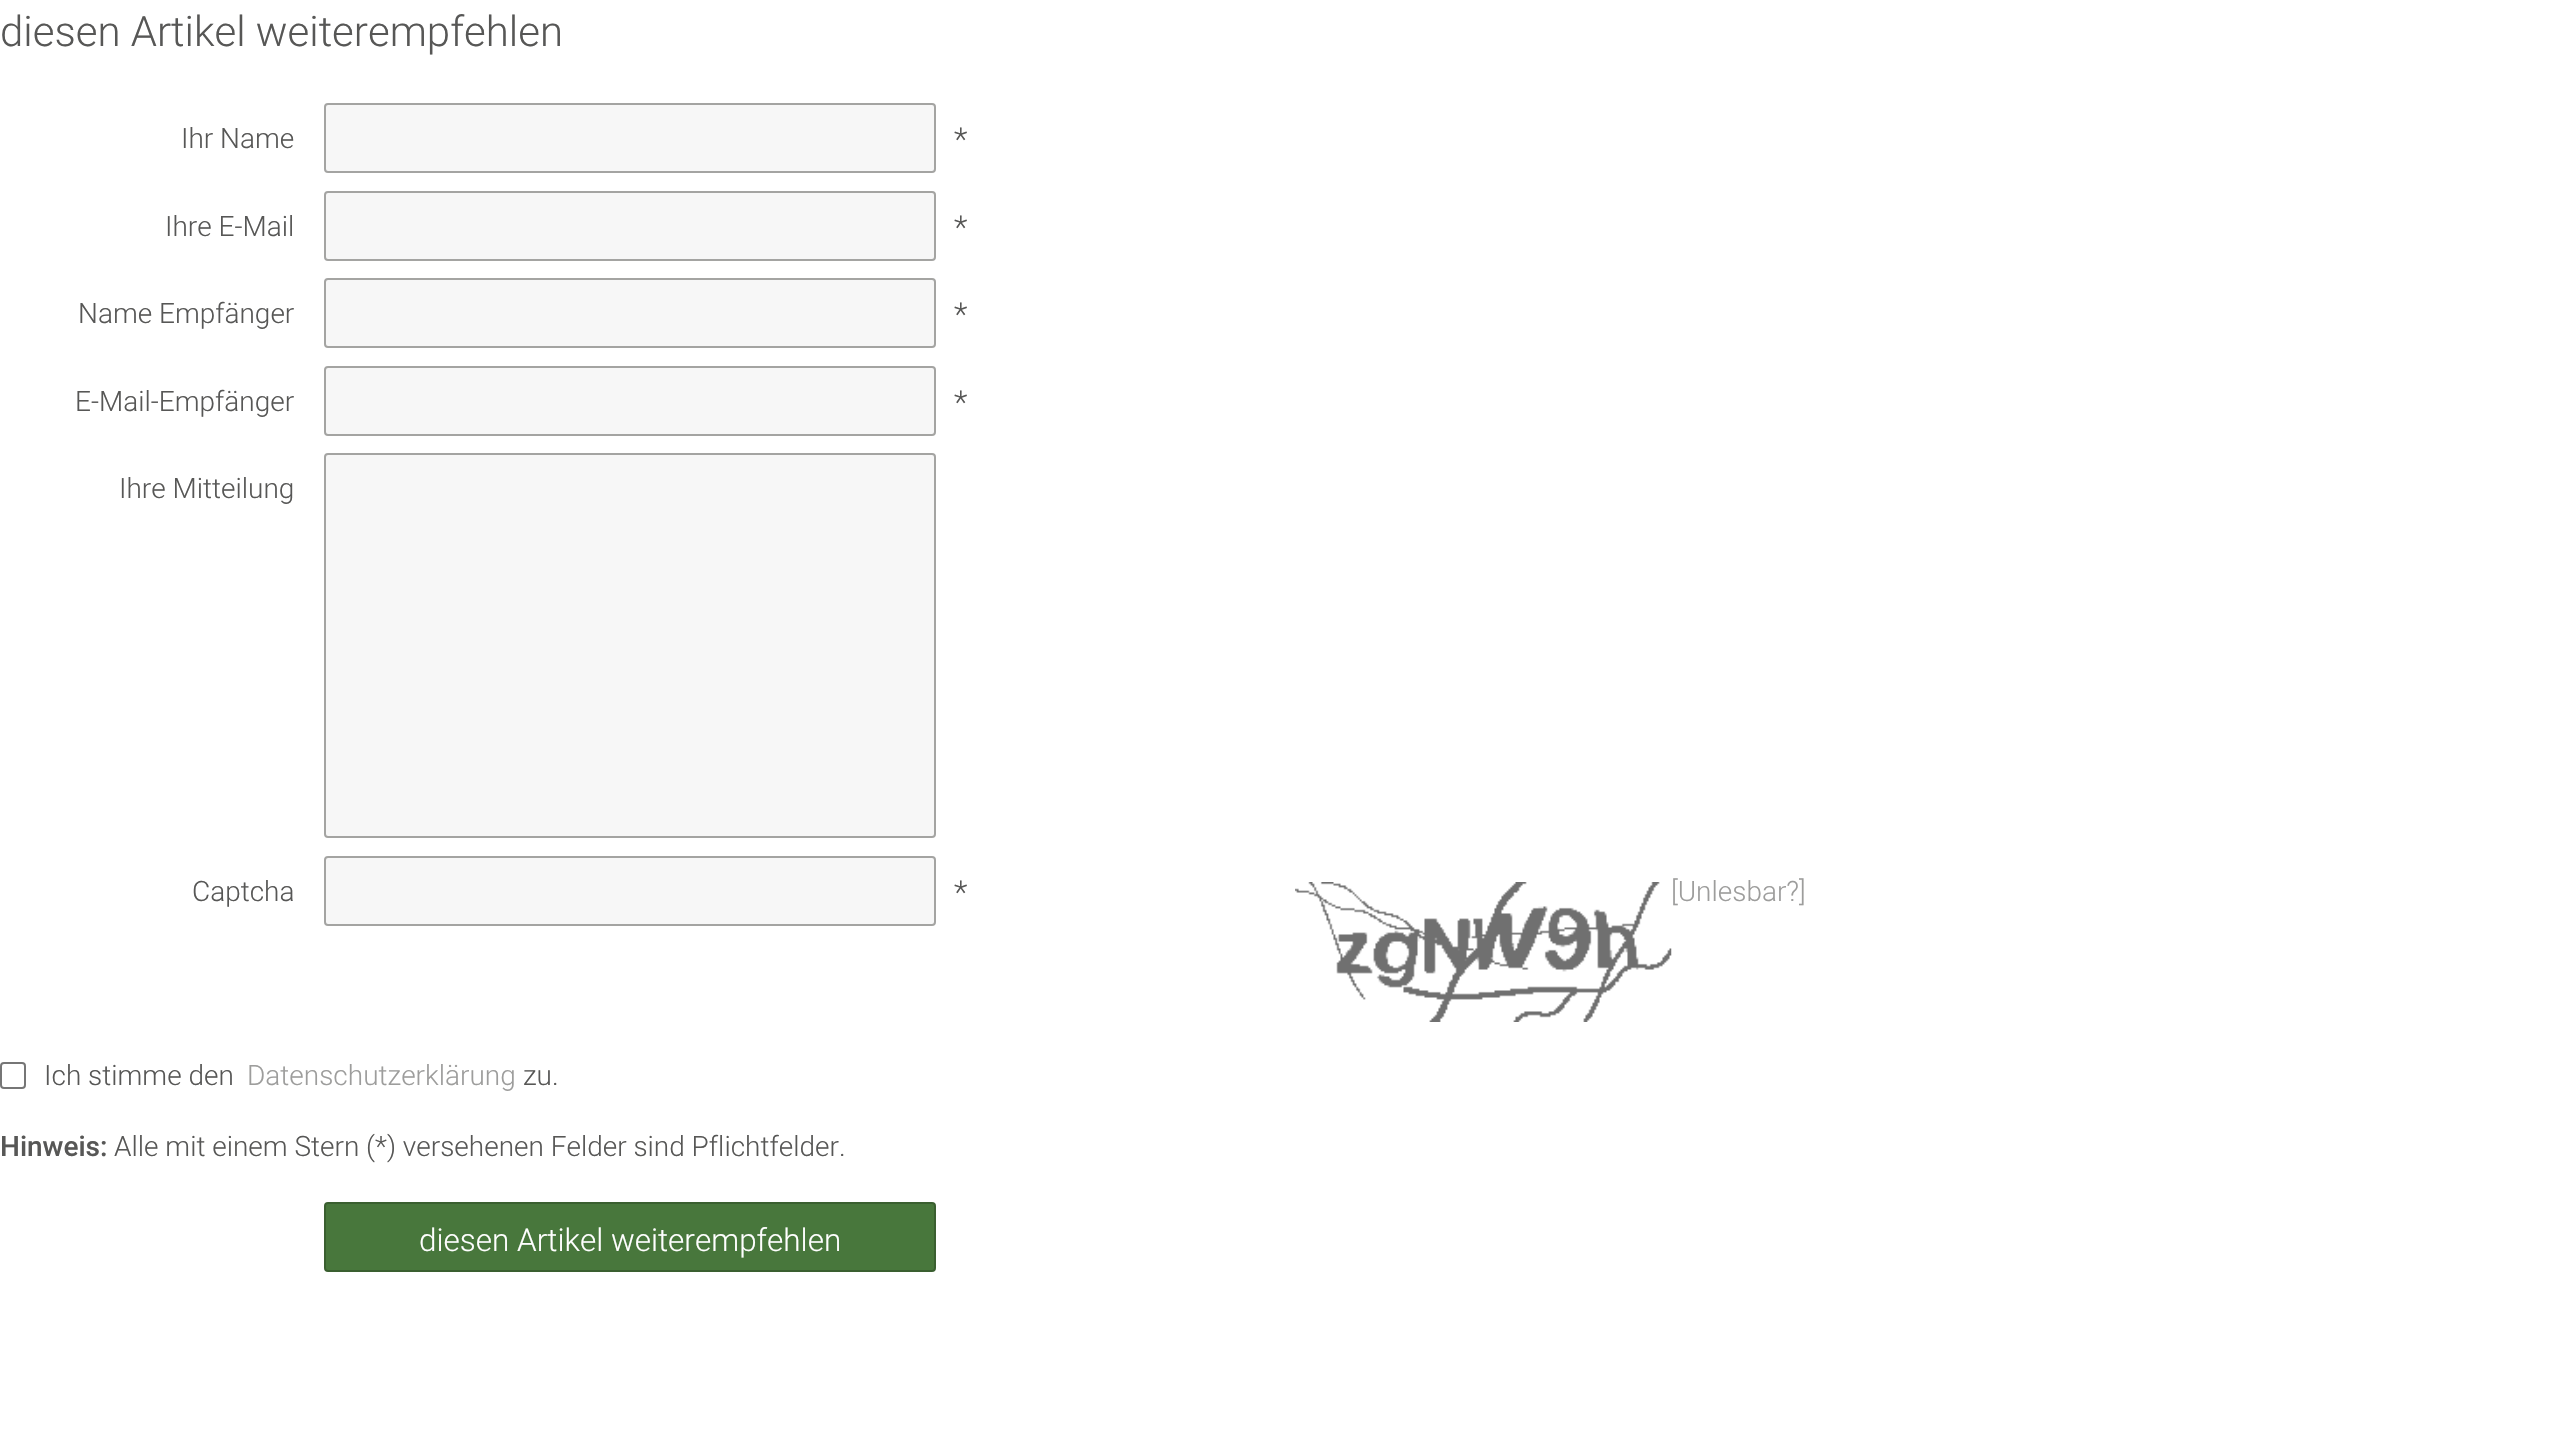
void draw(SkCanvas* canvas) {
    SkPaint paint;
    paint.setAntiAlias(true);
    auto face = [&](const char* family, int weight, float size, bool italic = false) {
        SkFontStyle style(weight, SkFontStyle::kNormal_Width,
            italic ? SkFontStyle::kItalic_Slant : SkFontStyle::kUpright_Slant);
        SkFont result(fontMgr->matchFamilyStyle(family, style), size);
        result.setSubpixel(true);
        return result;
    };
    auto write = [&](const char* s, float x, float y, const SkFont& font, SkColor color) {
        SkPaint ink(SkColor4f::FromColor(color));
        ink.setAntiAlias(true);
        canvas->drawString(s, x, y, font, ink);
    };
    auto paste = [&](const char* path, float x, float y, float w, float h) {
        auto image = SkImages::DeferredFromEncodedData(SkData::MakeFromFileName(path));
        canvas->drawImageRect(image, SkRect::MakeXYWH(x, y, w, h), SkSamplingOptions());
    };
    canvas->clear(SK_ColorWHITE);
    auto kFont1 = face("Roboto", 300, 42);
    write("diesen Artikel weiterempfehlen", 0, 46, kFont1, SkColorSetRGB(87, 87, 86));
    auto kFont2 = face("Roboto", 300, 28);
    write("Ihr Name", 181, 148, kFont2, SkColorSetRGB(87, 87, 86));
    paint.setColor(SkColorSetRGB(247, 247, 247));
    canvas->drawRoundRect(SkRect::MakeXYWH(325, 104, 610, 68), 3, 3, paint);
    paint.setStyle(SkPaint::kStroke_Style);
    paint.setStrokeWidth(2);
    paint.setColor(SkColorSetRGB(164, 164, 162));
    canvas->drawRoundRect(SkRect::MakeXYWH(325, 104, 610, 68), 3, 3, paint);
    auto kFont3 = face("Roboto", 300, 31.5f);
    write("*", 954, 150, kFont3, SkColorSetRGB(87, 87, 86));
    write("Ihre E-Mail", 165, 236, kFont2, SkColorSetRGB(87, 87, 86));
    paint.setStyle(SkPaint::kFill_Style);
    paint.setColor(SkColorSetRGB(247, 247, 247));
    canvas->drawRoundRect(SkRect::MakeXYWH(325, 192, 610, 68), 3, 3, paint);
    paint.setStyle(SkPaint::kStroke_Style);
    paint.setColor(SkColorSetRGB(164, 164, 162));
    canvas->drawRoundRect(SkRect::MakeXYWH(325, 192, 610, 68), 3, 3, paint);
    write("*", 954, 238, kFont3, SkColorSetRGB(87, 87, 86));
    write("Name Empfänger", 78, 323, kFont2, SkColorSetRGB(87, 87, 86));
    paint.setStyle(SkPaint::kFill_Style);
    paint.setColor(SkColorSetRGB(247, 247, 247));
    canvas->drawRoundRect(SkRect::MakeXYWH(325, 279, 610, 68), 3, 3, paint);
    paint.setStyle(SkPaint::kStroke_Style);
    paint.setColor(SkColorSetRGB(164, 164, 162));
    canvas->drawRoundRect(SkRect::MakeXYWH(325, 279, 610, 68), 3, 3, paint);
    write("*", 954, 325, kFont3, SkColorSetRGB(87, 87, 86));
    write("E-Mail-Empfänger", 75, 411, kFont2, SkColorSetRGB(87, 87, 86));
    paint.setStyle(SkPaint::kFill_Style);
    paint.setColor(SkColorSetRGB(247, 247, 247));
    canvas->drawRoundRect(SkRect::MakeXYWH(325, 367, 610, 68), 3, 3, paint);
    paint.setStyle(SkPaint::kStroke_Style);
    paint.setColor(SkColorSetRGB(164, 164, 162));
    canvas->drawRoundRect(SkRect::MakeXYWH(325, 367, 610, 68), 3, 3, paint);
    write("*", 954, 413, kFont3, SkColorSetRGB(87, 87, 86));
    write("Ihre Mitteilung", 119, 498, kFont2, SkColorSetRGB(87, 87, 86));
    paint.setStyle(SkPaint::kFill_Style);
    paint.setColor(SkColorSetRGB(247, 247, 247));
    canvas->drawRoundRect(SkRect::MakeXYWH(325, 454, 610, 383), 3, 3, paint);
    paint.setStyle(SkPaint::kStroke_Style);
    paint.setColor(SkColorSetRGB(164, 164, 162));
    canvas->drawRoundRect(SkRect::MakeXYWH(325, 454, 610, 383), 3, 3, paint);
    write("Captcha", 192, 901, kFont2, SkColorSetRGB(87, 87, 86));
    paint.setStyle(SkPaint::kFill_Style);
    paint.setColor(SkColorSetRGB(247, 247, 247));
    canvas->drawRoundRect(SkRect::MakeXYWH(325, 857, 610, 68), 3, 3, paint);
    paint.setStyle(SkPaint::kStroke_Style);
    paint.setColor(SkColorSetRGB(164, 164, 162));
    canvas->drawRoundRect(SkRect::MakeXYWH(325, 857, 610, 68), 3, 3, paint);
    write("*", 954, 903, kFont3, SkColorSetRGB(87, 87, 86));
    paste("pic1.png", 1295, 882, 377, 140);
    write("[Unlesbar?]", 1671, 901, kFont2, SkColorSetRGB(157, 157, 156));
    paint.setColor(SkColorSetRGB(118, 118, 118));
    canvas->drawRoundRect(SkRect::MakeXYWH(1, 1063, 24, 25), 3, 3, paint);
    write("Ich stimme den", 44, 1085, kFont2, SkColorSetRGB(87, 87, 86));
    write("Datenschutzerklärung", 247, 1085, kFont2, SkColorSetRGB(157, 157, 156));
    write("zu.", 523, 1085, kFont2, SkColorSetRGB(87, 87, 86));
    auto kFont4 = face("Roboto", 500, 28);
    write("Hinweis:", 0, 1156, kFont4, SkColorSetRGB(87, 87, 86));
    write("Alle mit einem Stern (*) versehenen Felder sind Pflichtfelder.", 114, 1156, kFont2, SkColorSetRGB(87, 87, 86));
    paint.setStyle(SkPaint::kFill_Style);
    paint.setColor(SkColorSetRGB(72, 119, 60));
    canvas->drawRoundRect(SkRect::MakeXYWH(325, 1203, 610, 68), 3, 3, paint);
    paint.setStyle(SkPaint::kStroke_Style);
    paint.setColor(SkColorSetRGB(58, 95, 48));
    canvas->drawRoundRect(SkRect::MakeXYWH(325, 1203, 610, 68), 3, 3, paint);
    write("diesen Artikel weiterempfehlen", 419, 1251, kFont3, SK_ColorWHITE);
}
